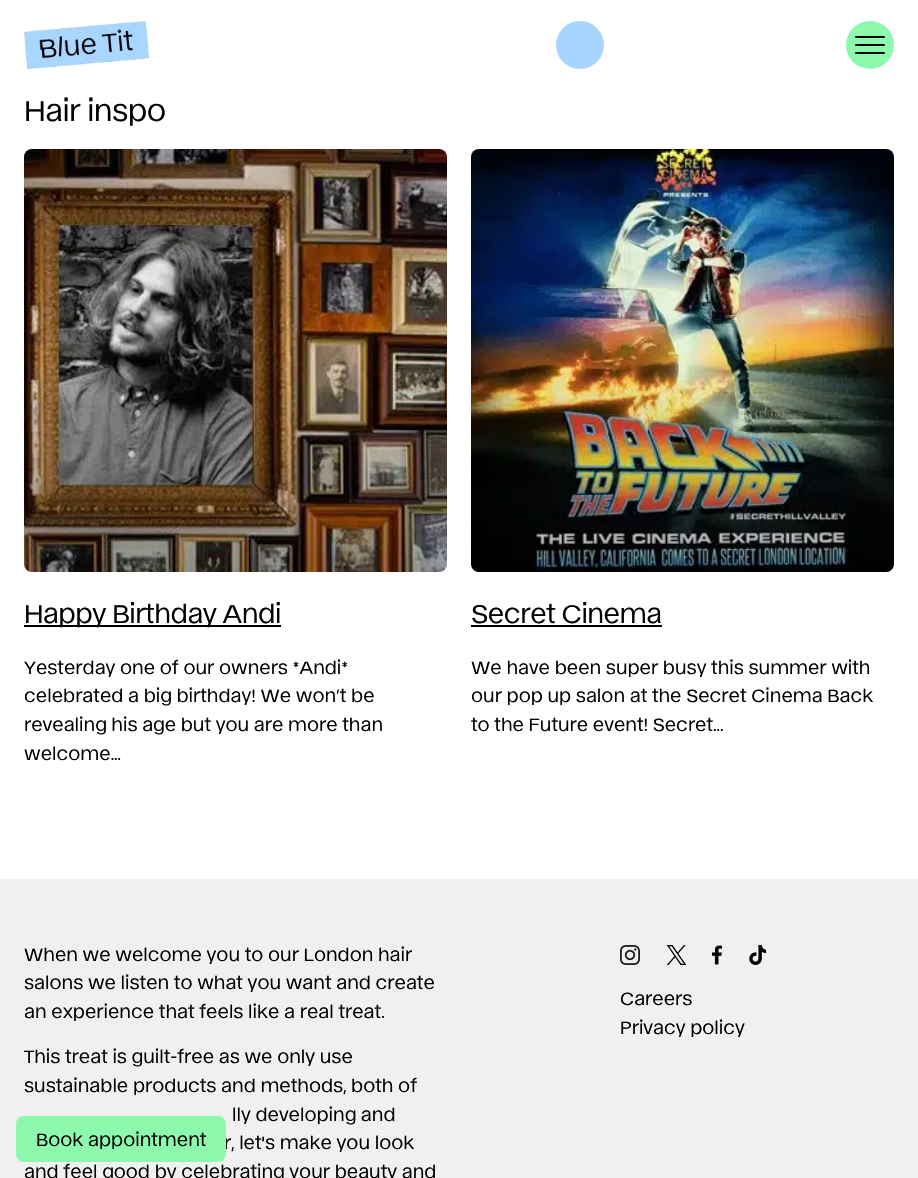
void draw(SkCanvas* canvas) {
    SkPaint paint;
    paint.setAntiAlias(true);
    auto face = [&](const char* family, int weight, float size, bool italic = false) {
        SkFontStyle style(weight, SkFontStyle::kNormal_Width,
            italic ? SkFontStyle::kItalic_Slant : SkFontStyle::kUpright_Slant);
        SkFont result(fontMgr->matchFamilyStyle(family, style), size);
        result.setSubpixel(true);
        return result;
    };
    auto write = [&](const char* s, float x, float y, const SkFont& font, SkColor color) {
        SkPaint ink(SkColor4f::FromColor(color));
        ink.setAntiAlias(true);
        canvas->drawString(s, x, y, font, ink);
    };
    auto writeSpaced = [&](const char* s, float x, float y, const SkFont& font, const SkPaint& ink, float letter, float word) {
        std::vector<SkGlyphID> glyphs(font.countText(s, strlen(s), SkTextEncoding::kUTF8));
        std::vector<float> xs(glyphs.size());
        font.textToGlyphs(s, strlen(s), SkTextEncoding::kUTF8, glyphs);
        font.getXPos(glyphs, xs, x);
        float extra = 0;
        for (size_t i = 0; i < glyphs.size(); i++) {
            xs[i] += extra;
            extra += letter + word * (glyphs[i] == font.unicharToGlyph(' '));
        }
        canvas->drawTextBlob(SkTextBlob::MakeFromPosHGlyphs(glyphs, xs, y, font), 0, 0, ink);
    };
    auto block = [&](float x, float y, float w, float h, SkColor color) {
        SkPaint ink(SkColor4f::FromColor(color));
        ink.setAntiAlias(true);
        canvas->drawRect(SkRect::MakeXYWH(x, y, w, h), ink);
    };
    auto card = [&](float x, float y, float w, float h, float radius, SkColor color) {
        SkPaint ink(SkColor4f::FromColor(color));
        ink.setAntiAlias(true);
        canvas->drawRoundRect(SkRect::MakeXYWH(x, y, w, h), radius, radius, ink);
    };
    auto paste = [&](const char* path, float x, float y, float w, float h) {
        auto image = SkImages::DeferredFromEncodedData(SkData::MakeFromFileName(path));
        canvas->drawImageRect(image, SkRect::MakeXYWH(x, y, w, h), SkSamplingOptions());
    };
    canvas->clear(SK_ColorWHITE);
    paste("pic1.png", 24, 21, 125, 48);
    paint.setColor(SkColorSetRGB(167, 213, 255));
    canvas->drawCircle(580, 45, 24, paint);
    paint.setColor(SkColorSetRGB(140, 249, 173));
    canvas->drawCircle(870, 45, 24, paint);
    card(855, 36, 30, 2, 1, SK_ColorBLACK);
    card(855, 44, 30, 2, 1, SK_ColorBLACK);
    card(855, 52, 30, 2, 1, SK_ColorBLACK);
    auto kFont1 = face("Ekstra", 400, 29);
    paint.setColor(SK_ColorBLACK);
    writeSpaced("Hair inspo", 24, 121, kFont1, paint, -0.5f, 0);
    card(24, 149, 423, 423, 8, SkColorSetRGB(240, 240, 240));
    paste("pic2.png", 24, 149, 423, 423);
    {
        const SkColor colors[] = {SkColorSetARGB(0, 0, 0, 0), SkColorSetARGB(77, 0, 0, 0)};
        const float stops[] = {0.5f, 1};
        const SkPoint ends[] = {{235, 149}, {236, 572}};
        paint.setShader(SkGradientShader::MakeLinear(ends, colors, stops, 2, SkTileMode::kClamp));
        paint.setAlpha(255);
    }
    canvas->drawRoundRect(SkRect::MakeXYWH(24, 149, 423, 423), 8, 8, paint);
    block(24, 625, 257, 2, SK_ColorBLACK);
    auto kFont2 = face("Ekstra", 400, 26);
    paint.setShader(nullptr);
    paint.setColor(SK_ColorBLACK);
    writeSpaced("Happy Birthday Andi", 24, 623, kFont2, paint, -0.5f, 0);
    auto kFont3 = face("Ekstra", 400, 18);
    write("Yesterday one of our owners *Andi*", 24, 674, kFont3, SK_ColorBLACK);
    write("celebrated a big birthday! We won’t be", 24, 702, kFont3, SK_ColorBLACK);
    write("revealing his age but you are more than", 24, 731, kFont3, SK_ColorBLACK);
    write("welcome...", 24, 760, kFont3, SK_ColorBLACK);
    card(471, 149, 423, 423, 8, SkColorSetRGB(240, 240, 240));
    paste("pic3.png", 471, 149, 423, 423);
    {
        const SkColor colors[] = {SkColorSetARGB(0, 0, 0, 0), SkColorSetARGB(77, 0, 0, 0)};
        const float stops[] = {0.5f, 1};
        const SkPoint ends[] = {{683, 149}, {683, 572}};
        paint.setShader(SkGradientShader::MakeLinear(ends, colors, stops, 2, SkTileMode::kClamp));
        paint.setAlpha(255);
    }
    canvas->drawRoundRect(SkRect::MakeXYWH(471, 149, 423, 423), 8, 8, paint);
    paint.setShader(nullptr);
    paint.setColor(SK_ColorBLACK);
    writeSpaced("Secret Cinema", 471, 623, kFont2, paint, -0.5f, 0);
    block(471, 625, 191, 2, SK_ColorBLACK);
    write("We have been super busy this summer with", 471, 674, kFont3, SK_ColorBLACK);
    write("our pop up salon at the Secret Cinema Back", 471, 702, kFont3, SK_ColorBLACK);
    write("to the Future event! Secret...", 471, 731, kFont3, SK_ColorBLACK);
    block(0, 879, 918, 299, SkColorSetRGB(240, 240, 240));
    write("When we welcome you to our London hair", 24, 961, kFont3, SK_ColorBLACK);
    write("salons we listen to what you want and create", 24, 989, kFont3, SK_ColorBLACK);
    write("an experience that feels like a real treat.", 24, 1018, kFont3, SK_ColorBLACK);
    write("This treat is guilt-free as we only use", 24, 1063, kFont3, SK_ColorBLACK);
    write("sustainable products and methods, both of", 24, 1092, kFont3, SK_ColorBLACK);
    write("lly developing and", 232, 1121, kFont3, SK_ColorBLACK);
    write("r, let's make you look", 224, 1149, kFont3, SK_ColorBLACK);
    write("and feel good by celebrating your beauty and", 24, 1178, kFont3, SK_ColorBLACK);
    paste("pic4.png", 620, 945, 20, 20);
    paste("pic5.png", 666, 945, 20, 20);
    paste("pic6.png", 712, 945, 10, 20);
    paste("pic7.png", 749, 945, 17, 20);
    write("Careers", 620, 1005, kFont3, SK_ColorBLACK);
    write("Privacy policy", 620, 1034, kFont3, SK_ColorBLACK);
    card(16, 1116, 210, 46, 8, SkColorSetRGB(140, 249, 173));
    write("Book appointment", 36, 1146, kFont3, SK_ColorBLACK);
}
